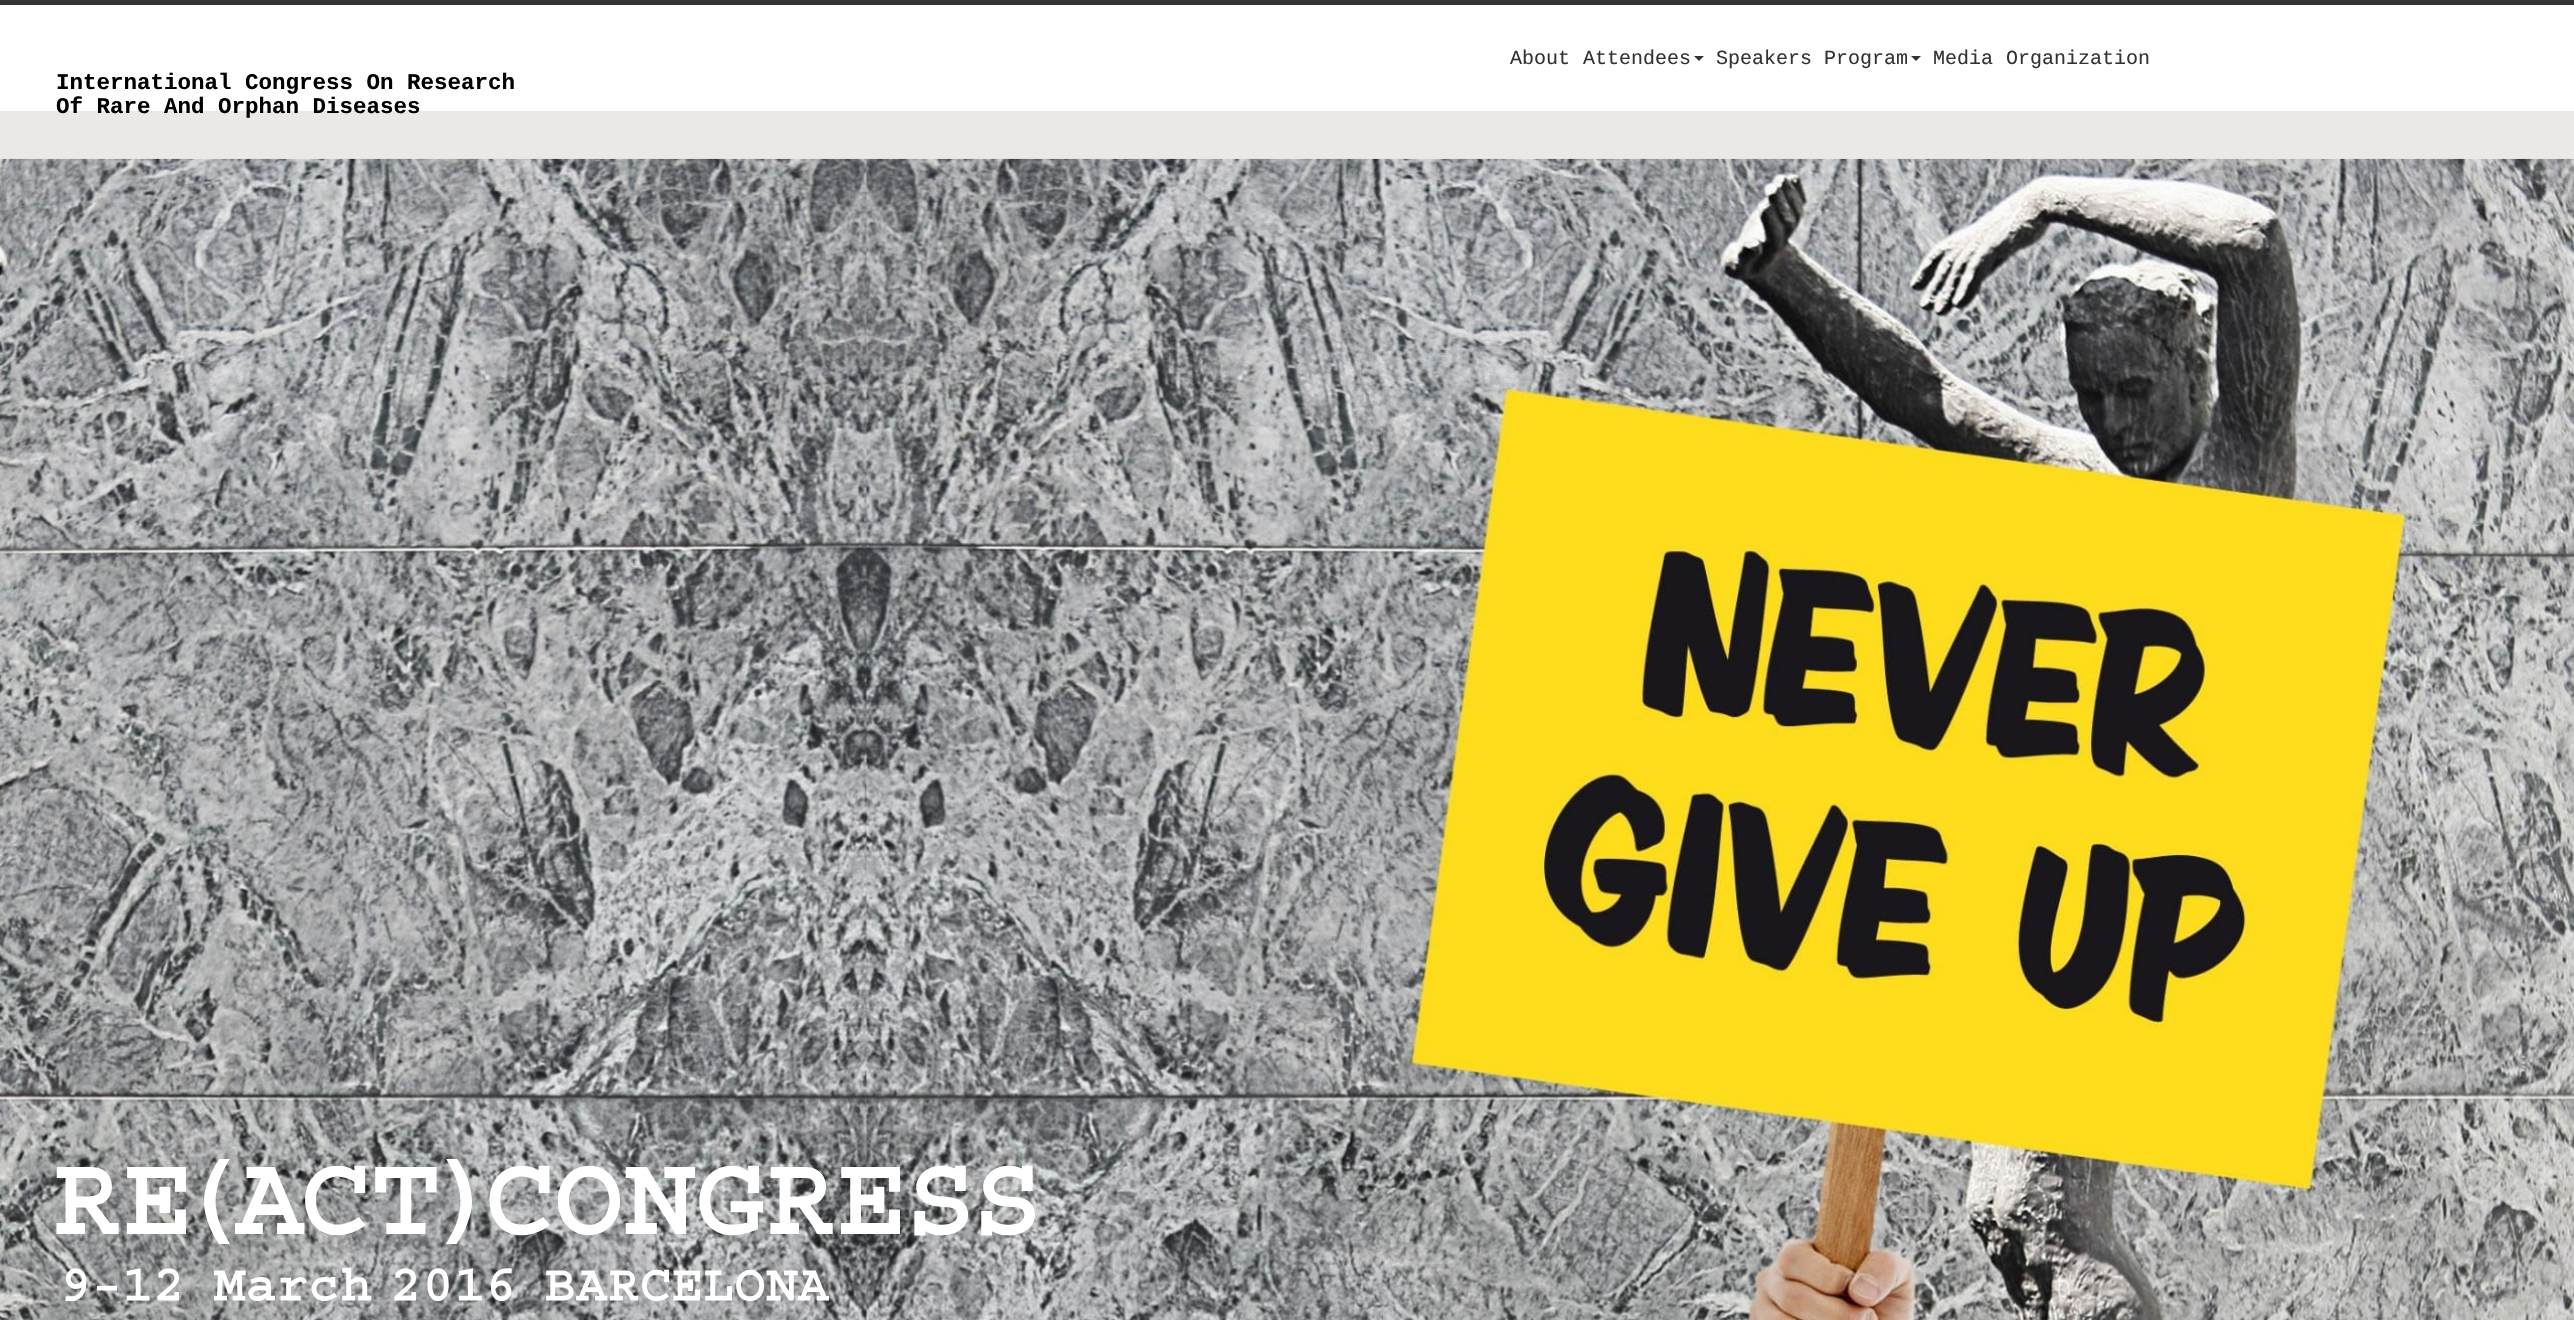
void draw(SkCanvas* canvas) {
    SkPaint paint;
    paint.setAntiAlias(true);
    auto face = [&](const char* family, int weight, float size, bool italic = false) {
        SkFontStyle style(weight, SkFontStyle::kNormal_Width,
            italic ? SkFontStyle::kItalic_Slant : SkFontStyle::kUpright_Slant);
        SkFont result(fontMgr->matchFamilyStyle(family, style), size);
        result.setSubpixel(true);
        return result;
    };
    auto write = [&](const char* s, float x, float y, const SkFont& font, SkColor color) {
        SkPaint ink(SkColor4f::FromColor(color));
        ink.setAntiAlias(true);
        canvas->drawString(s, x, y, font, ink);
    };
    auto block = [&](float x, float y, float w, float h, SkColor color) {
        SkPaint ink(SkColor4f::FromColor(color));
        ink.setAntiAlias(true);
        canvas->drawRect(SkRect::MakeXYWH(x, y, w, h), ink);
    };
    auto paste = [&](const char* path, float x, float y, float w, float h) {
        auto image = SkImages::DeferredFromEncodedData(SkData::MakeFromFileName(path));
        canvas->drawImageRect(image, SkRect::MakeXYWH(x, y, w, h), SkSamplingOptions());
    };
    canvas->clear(SkColorSetRGB(235, 233, 232));
    block(0, 5, 2574, 106, SK_ColorWHITE);
    block(0, 0, 2574, 5, SkColorSetRGB(51, 51, 51));
    auto kFont1 = face("Liberation Mono", 400, 20);
    write("About", 1510, 64, kFont1, SkColorSetRGB(51, 51, 51));
    write("Attendees", 1583, 64, kFont1, SkColorSetRGB(51, 51, 51));
    paint.setColor(SkColorSetRGB(51, 51, 51));
    canvas->drawPath(SkPathBuilder().moveTo(1694, 56).lineTo(1704, 56).lineTo(1699, 61).close().detach(), paint);
    write("Speakers", 1716, 64, kFont1, SkColorSetRGB(51, 51, 51));
    write("Program", 1824, 64, kFont1, SkColorSetRGB(51, 51, 51));
    canvas->drawPath(SkPathBuilder().moveTo(1911, 56).lineTo(1921, 56).lineTo(1916, 61).close().detach(), paint);
    write("Media", 1933, 64, kFont1, SkColorSetRGB(51, 51, 51));
    write("Organization", 2006, 64, kFont1, SkColorSetRGB(51, 51, 51));
    auto kFont2 = face("Liberation Mono", 700, 22.5f);
    write("International Congress On Research", 56, 89, kFont2, SK_ColorBLACK);
    write("Of Rare And Orphan Diseases", 56, 113, kFont2, SK_ColorBLACK);
    paste("pic1.png", 0, 158, 2574, 1162);
    paste("pic2.png", 56, 1159, 979, 142);
}
